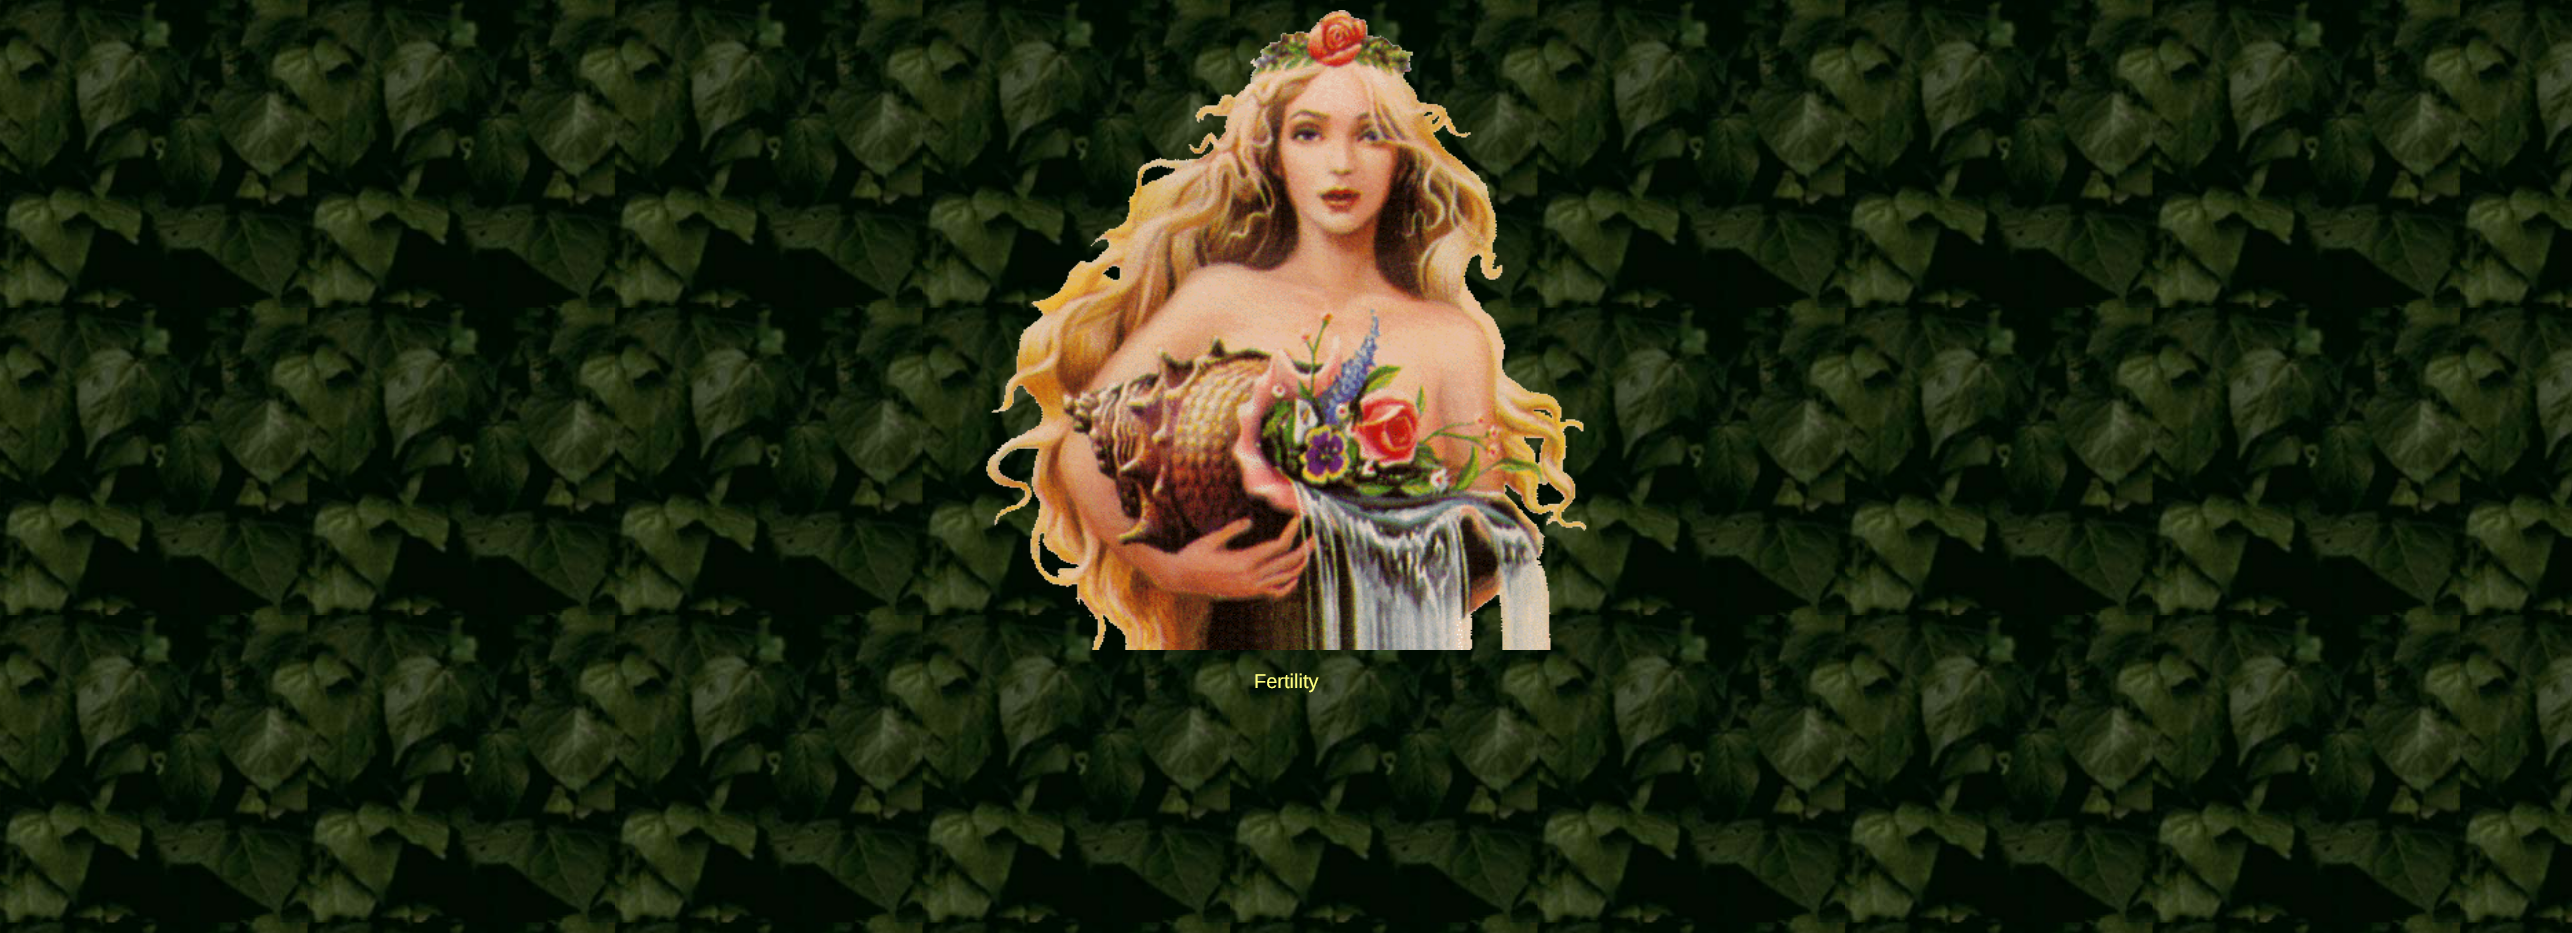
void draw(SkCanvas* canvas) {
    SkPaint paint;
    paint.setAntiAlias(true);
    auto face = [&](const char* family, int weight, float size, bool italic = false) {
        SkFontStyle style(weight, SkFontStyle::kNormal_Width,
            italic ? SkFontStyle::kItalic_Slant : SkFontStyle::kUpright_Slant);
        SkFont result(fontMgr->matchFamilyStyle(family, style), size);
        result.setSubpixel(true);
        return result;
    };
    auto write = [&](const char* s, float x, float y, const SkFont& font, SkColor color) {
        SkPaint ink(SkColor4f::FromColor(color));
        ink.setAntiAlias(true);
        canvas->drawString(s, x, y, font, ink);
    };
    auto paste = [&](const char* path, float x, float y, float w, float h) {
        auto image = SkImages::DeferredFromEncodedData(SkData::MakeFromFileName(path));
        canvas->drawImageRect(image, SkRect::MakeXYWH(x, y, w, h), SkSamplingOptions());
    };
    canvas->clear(SK_ColorWHITE);
    paste("pic1.png", 0, 0, 2572, 933);
    paste("pic2.png", 986, 10, 601, 640);
    auto kFont1 = face("Liberation Sans", 400, 20);
    write("Fertility", 1254, 688, kFont1, SkColorSetRGB(255, 255, 128));
}
